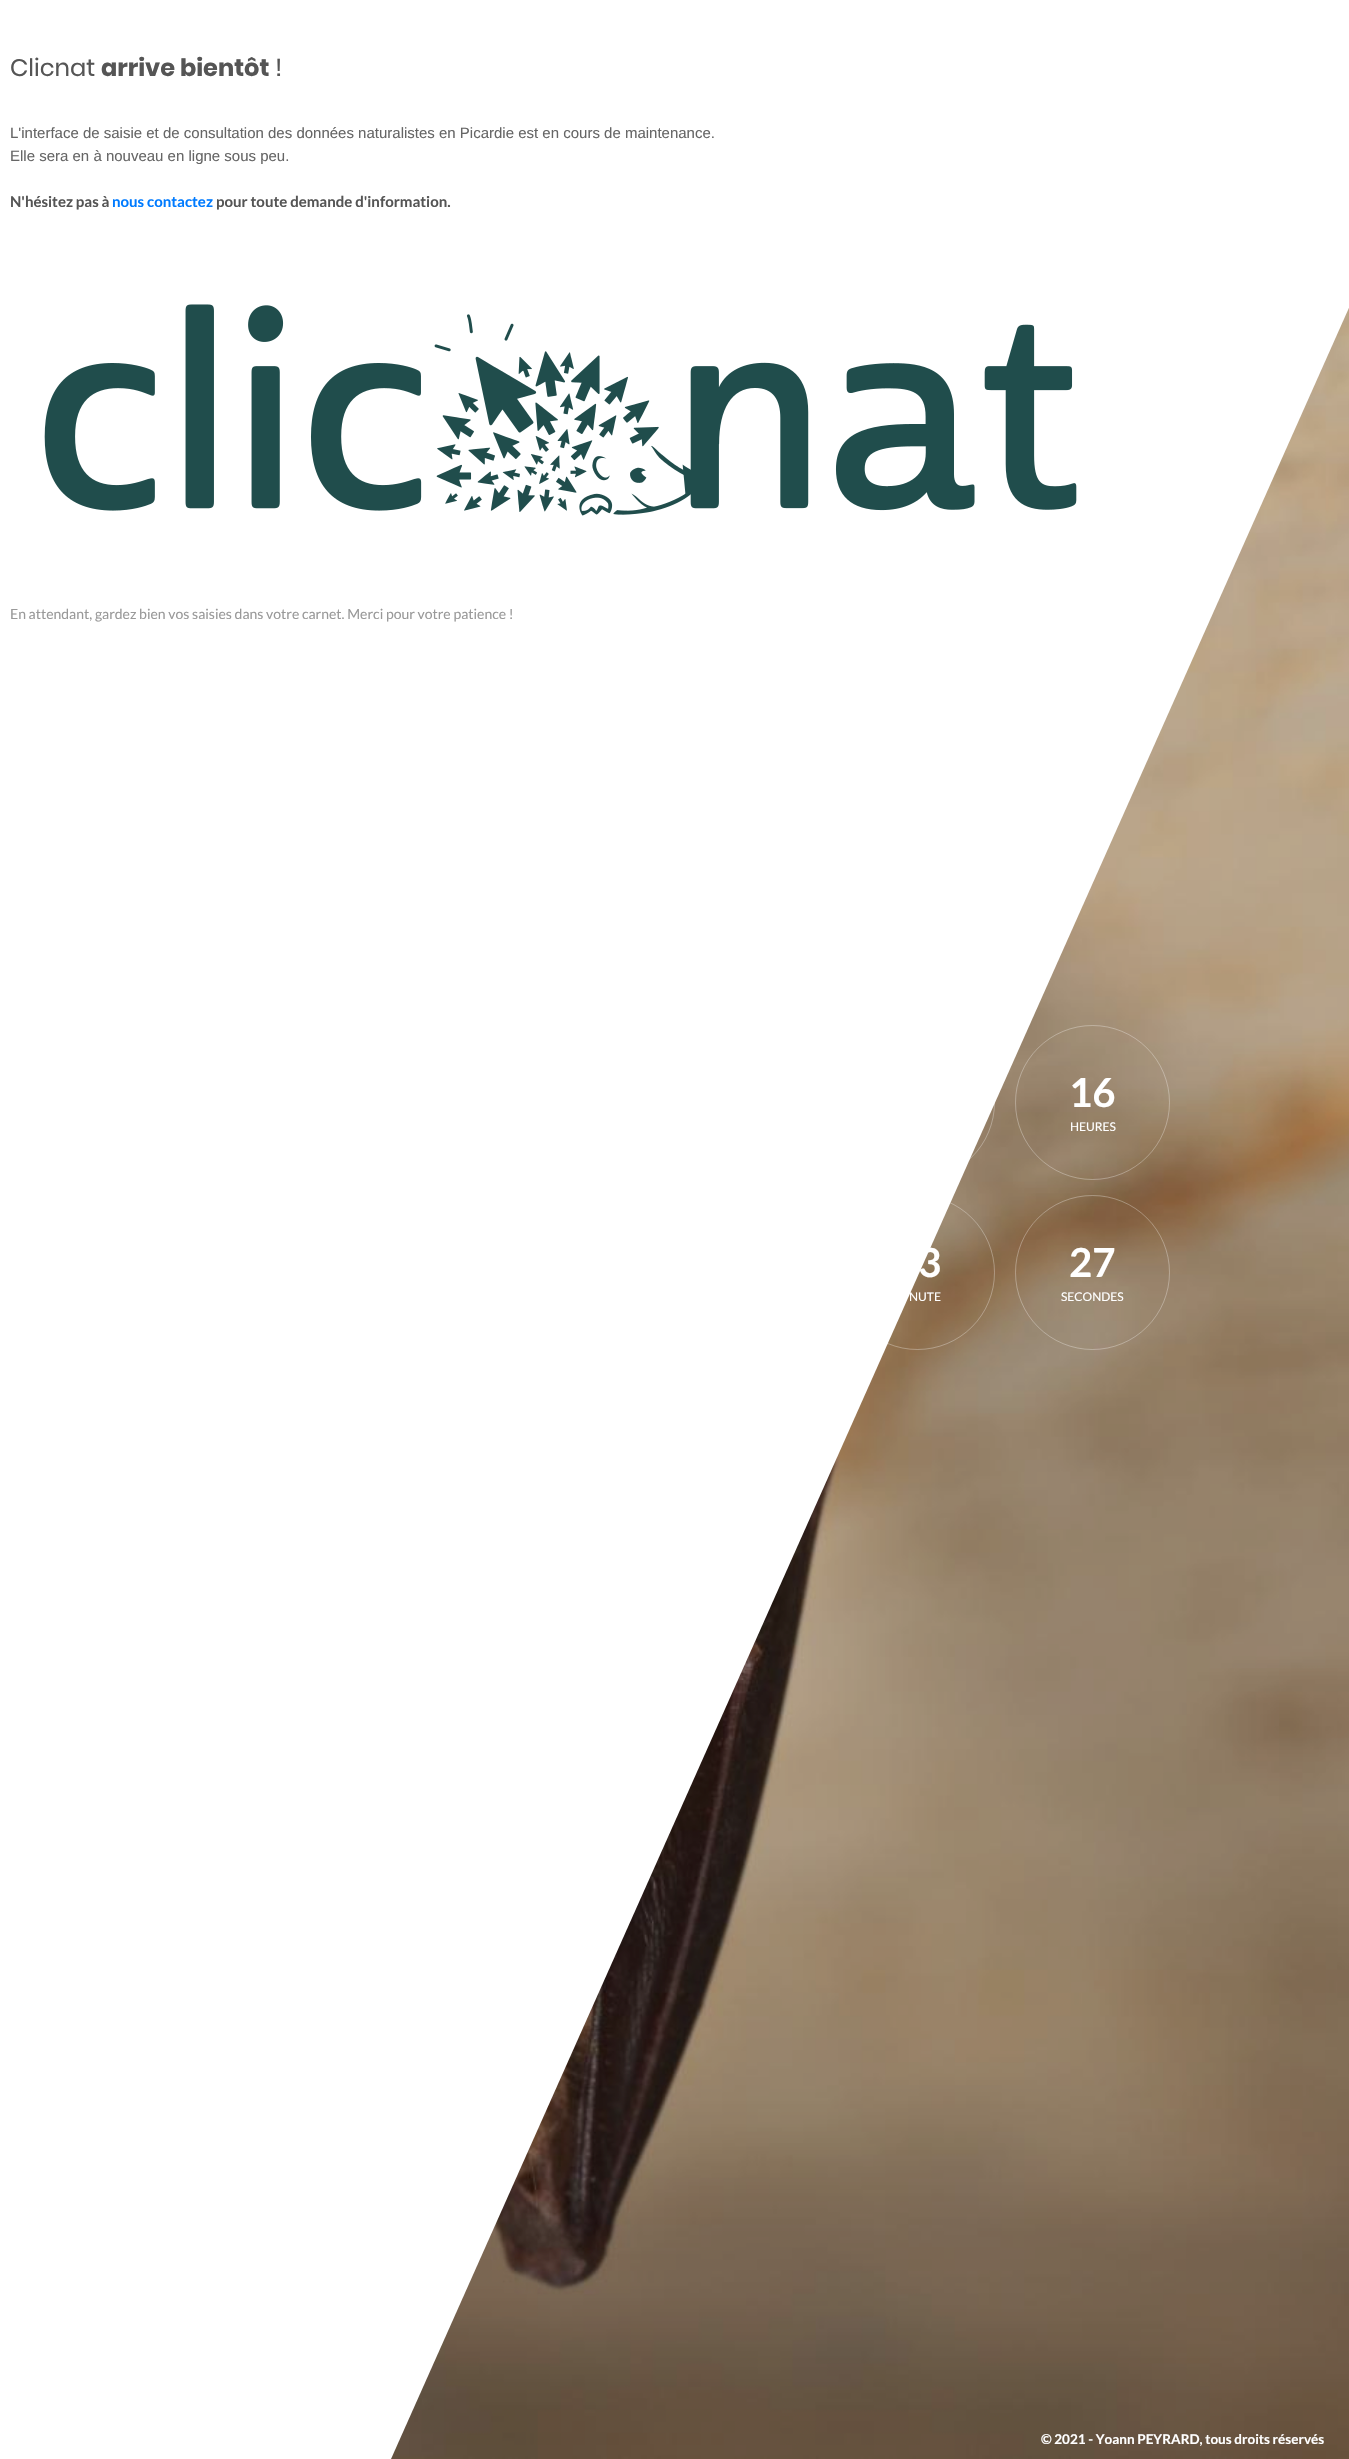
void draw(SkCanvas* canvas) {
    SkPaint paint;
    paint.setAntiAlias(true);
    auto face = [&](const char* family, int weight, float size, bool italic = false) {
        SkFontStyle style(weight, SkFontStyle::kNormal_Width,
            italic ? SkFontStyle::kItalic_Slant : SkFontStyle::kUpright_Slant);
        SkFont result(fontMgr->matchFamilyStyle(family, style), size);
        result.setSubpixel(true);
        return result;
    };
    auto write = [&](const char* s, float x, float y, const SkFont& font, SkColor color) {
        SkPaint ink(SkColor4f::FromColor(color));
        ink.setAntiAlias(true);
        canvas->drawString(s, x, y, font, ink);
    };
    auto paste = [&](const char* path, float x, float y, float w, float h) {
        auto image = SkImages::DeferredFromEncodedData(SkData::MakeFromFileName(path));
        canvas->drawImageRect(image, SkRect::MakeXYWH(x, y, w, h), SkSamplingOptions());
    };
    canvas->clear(SK_ColorWHITE);
    auto kFont1 = face("Poppins", 400, 24);
    write("Clicnat", 10, 76, kFont1, SkColorSetRGB(85, 85, 85));
    auto kFont2 = face("Poppins", 700, 24);
    write("arrive bientôt", 101, 76, kFont2, SkColorSetRGB(85, 85, 85));
    write("!", 275, 76, kFont1, SkColorSetRGB(85, 85, 85));
    paste("pic2.png", 391, 307, 958, 2152);
    canvas->save();
    canvas->clipRect(SkRect::MakeXYWH(391, 0, 958, 2459));
    paint.setColor(SK_ColorWHITE);
    canvas->drawPath(SkPathBuilder().moveTo(-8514, 0).lineTo(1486, 0).lineTo(391, 2459).lineTo(-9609, 2459).close().detach(), paint);
    canvas->restore();
    auto kFont3 = face("Liberation Sans", 400, 15);
    write("L'interface de saisie et de consultation des données naturalistes en Picardie est en cours de maintenance.", 10, 138, kFont3, SkColorSetRGB(102, 102, 102));
    write("Elle sera en à nouveau en ligne sous peu.", 10, 161, kFont3, SkColorSetRGB(102, 102, 102));
    auto kFont4 = face("Lato", 700, 15);
    write("N'hésitez pas à", 10, 207, kFont4, SkColorSetRGB(85, 85, 85));
    write("nous contactez", 112, 207, kFont4, SkColorSetRGB(0, 123, 255));
    write("pour toute demande d'information.", 216, 207, kFont4, SkColorSetRGB(85, 85, 85));
    paste("pic1.png", 44, 304, 1033, 212);
    auto kFont5 = face("Lato", 400, 14);
    write("En attendant, gardez bien vos saisies dans votre carnet. Merci pour votre patience !", 10, 619, kFont5, SkColorSetRGB(153, 153, 153));
    paint.setStyle(SkPaint::kStroke_Style);
    paint.setStrokeWidth(1);
    paint.setColor(SkColorSetARGB(77, 255, 255, 255));
    canvas->drawCircle(917.5f, 1102.5f, 77, paint);
    canvas->drawCircle(1092.5f, 1102.5f, 77, paint);
    auto kFont6 = face("Lato", 700, 40);
    write("16", 1069, 1107, kFont6, SK_ColorWHITE);
    auto kFont7 = face("Lato", 400, 12);
    write("HEURES", 1070, 1131, kFont7, SK_ColorWHITE);
    canvas->drawCircle(917.5f, 1272.5f, 77, paint);
    write("3", 918, 1277, kFont6, SK_ColorWHITE);
    write("NUTE", 909, 1301, kFont7, SK_ColorWHITE);
    canvas->drawCircle(1092.5f, 1272.5f, 77, paint);
    write("27", 1069, 1277, kFont6, SK_ColorWHITE);
    write("SECONDES", 1061, 1301, kFont7, SK_ColorWHITE);
    auto kFont8 = face("Lato", 700, 13.5f);
    write("© 2021 - Yoann PEYRARD, tous droits réservés", 1041, 2444, kFont8, SK_ColorWHITE);
}
